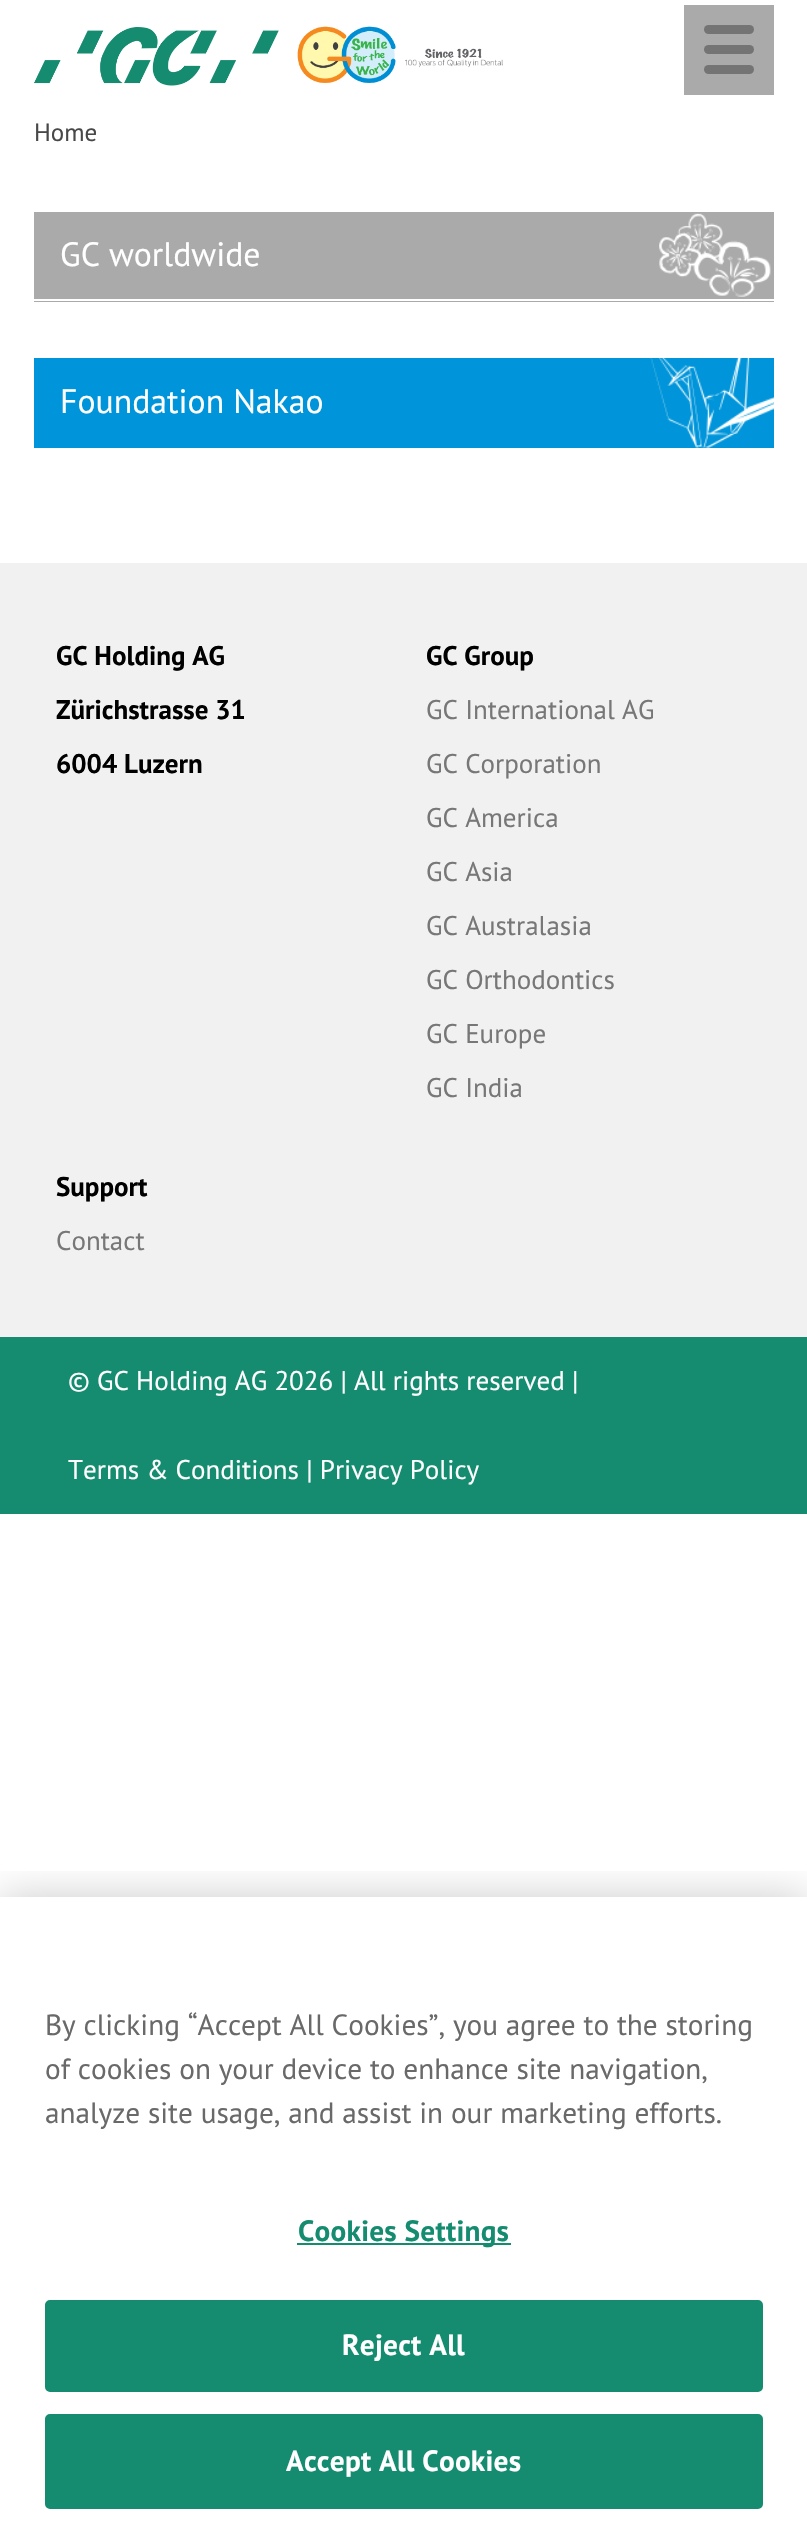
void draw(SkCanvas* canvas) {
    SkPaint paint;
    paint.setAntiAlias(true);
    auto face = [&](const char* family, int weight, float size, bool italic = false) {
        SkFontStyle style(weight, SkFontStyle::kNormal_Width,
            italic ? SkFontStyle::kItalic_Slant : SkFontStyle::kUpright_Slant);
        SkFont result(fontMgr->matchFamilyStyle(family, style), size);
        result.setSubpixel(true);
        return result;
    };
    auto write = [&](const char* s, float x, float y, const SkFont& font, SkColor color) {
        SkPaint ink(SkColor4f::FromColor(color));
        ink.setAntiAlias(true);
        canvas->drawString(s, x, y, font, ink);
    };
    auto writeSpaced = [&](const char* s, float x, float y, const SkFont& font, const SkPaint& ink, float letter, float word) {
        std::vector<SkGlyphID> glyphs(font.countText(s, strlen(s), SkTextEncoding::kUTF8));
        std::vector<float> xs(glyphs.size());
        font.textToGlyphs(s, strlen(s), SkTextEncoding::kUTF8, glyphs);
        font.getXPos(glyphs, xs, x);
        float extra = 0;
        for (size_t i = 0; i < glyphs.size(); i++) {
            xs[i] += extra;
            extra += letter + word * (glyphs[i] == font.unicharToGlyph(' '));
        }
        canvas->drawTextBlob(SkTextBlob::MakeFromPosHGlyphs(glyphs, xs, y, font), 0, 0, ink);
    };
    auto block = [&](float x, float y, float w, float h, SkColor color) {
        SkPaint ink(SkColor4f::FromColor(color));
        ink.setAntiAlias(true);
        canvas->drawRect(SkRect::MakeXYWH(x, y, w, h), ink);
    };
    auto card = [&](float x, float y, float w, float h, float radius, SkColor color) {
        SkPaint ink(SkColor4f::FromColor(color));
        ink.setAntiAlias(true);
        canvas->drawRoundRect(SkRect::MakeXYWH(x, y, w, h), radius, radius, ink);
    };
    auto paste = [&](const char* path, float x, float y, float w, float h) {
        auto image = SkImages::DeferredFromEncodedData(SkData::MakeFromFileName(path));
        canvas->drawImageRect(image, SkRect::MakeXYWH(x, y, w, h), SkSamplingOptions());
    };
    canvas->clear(SK_ColorWHITE);
    paste("pic1.png", 33, 27, 246, 59);
    paste("pic2.png", 297, 26, 206, 57);
    block(684, 5, 90, 90, SkColorSetRGB(170, 170, 170));
    card(704, 25, 50, 9, 4.5f, SkColorSetRGB(116, 116, 116));
    card(704, 45, 50, 9, 4.5f, SkColorSetRGB(116, 116, 116));
    card(704, 65, 50, 9, 4.5f, SkColorSetRGB(116, 116, 116));
    auto kFont1 = face("PT Sans", 400, 25);
    write("Home", 34, 141, kFont1, SkColorSetRGB(72, 72, 72));
    block(34, 212, 740, 90, SkColorSetRGB(170, 170, 170));
    block(34, 299, 740, 2, SK_ColorWHITE);
    paste("pic3.png", 659, 213, 112, 84);
    auto kFont2 = face("PT Sans", 400, 33.75f);
    write("GC worldwide", 60, 266, kFont2, SK_ColorWHITE);
    block(34, 358, 740, 90, SkColorSetRGB(0, 149, 218));
    paste("pic4.png", 650, 358, 124, 90);
    write("Foundation Nakao", 60, 413, kFont2, SK_ColorWHITE);
    block(0, 563, 807, 774, SkColorSetRGB(241, 241, 241));
    auto kFont3 = face("PT Sans", 700, 27);
    write("GC Holding AG", 56, 665, kFont3, SK_ColorBLACK);
    write("Zürichstrasse 31", 56, 719, kFont3, SK_ColorBLACK);
    write("6004 Luzern", 56, 773, kFont3, SK_ColorBLACK);
    write("GC Group", 426, 665, kFont3, SK_ColorBLACK);
    auto kFont4 = face("PT Sans", 400, 27);
    write("GC International AG", 426, 719, kFont4, SkColorSetRGB(119, 119, 119));
    write("GC Corporation", 426, 773, kFont4, SkColorSetRGB(119, 119, 119));
    write("GC America", 426, 827, kFont4, SkColorSetRGB(119, 119, 119));
    write("GC Asia", 426, 881, kFont4, SkColorSetRGB(119, 119, 119));
    write("GC Australasia", 426, 935, kFont4, SkColorSetRGB(119, 119, 119));
    write("GC Orthodontics", 426, 989, kFont4, SkColorSetRGB(119, 119, 119));
    write("GC Europe", 426, 1043, kFont4, SkColorSetRGB(119, 119, 119));
    write("GC India", 426, 1097, kFont4, SkColorSetRGB(119, 119, 119));
    write("Support", 56, 1196, kFont3, SK_ColorBLACK);
    write("Contact", 56, 1250, kFont4, SkColorSetRGB(119, 119, 119));
    block(0, 1337, 807, 177, SkColorSetRGB(21, 139, 112));
    write("© GC Holding AG 2026 | All rights reserved |", 68, 1390, kFont4, SK_ColorWHITE);
    write("Terms & Conditions | Privacy Policy", 68, 1479, kFont4, SK_ColorWHITE);
    canvas->save();
    canvas->clipRect(SkRect::MakeXYWH(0, 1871, 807, 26));
    paint.setColor(SkColorSetARGB(51, 0, 0, 0));
    paint.setMaskFilter(SkMaskFilter::MakeBlur(kNormal_SkBlurStyle, 20));
    canvas->drawRect(SkRect::MakeXYWH(0, 1897, 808, 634), paint);
    paint.setMaskFilter(nullptr);
    canvas->restore();
    auto kFont5 = face("PT Sans", 400, 29.25f);
    write("By clicking “Accept All Cookies”, you agree to the storing", 45, 2035, kFont5, SkColorSetRGB(105, 105, 105));
    write("of cookies on your device to enhance site navigation,", 45, 2079, kFont5, SkColorSetRGB(105, 105, 105));
    write("analyze site usage, and assist in our marketing efforts.", 45, 2123, kFont5, SkColorSetRGB(105, 105, 105));
    block(297, 2243, 214, 2, SkColorSetRGB(21, 139, 112));
    auto kFont6 = face("PT Sans", 700, 29.25f);
    paint.setColor(SkColorSetRGB(21, 139, 112));
    writeSpaced("Cookies Settings", 298, 2241, kFont6, paint, 0.25f, 0);
    canvas->drawRoundRect(SkRect::MakeXYWH(46, 2301, 716, 90), 4, 4, paint);
    paint.setStyle(SkPaint::kStroke_Style);
    paint.setStrokeWidth(2);
    canvas->drawRoundRect(SkRect::MakeXYWH(46, 2301, 716, 90), 4, 4, paint);
    paint.setStyle(SkPaint::kFill_Style);
    paint.setColor(SK_ColorWHITE);
    writeSpaced("Reject All", 342, 2355, kFont6, paint, 0.25f, 0);
    paint.setColor(SkColorSetRGB(21, 139, 112));
    canvas->drawRoundRect(SkRect::MakeXYWH(46, 2415, 716, 93), 4, 4, paint);
    paint.setStyle(SkPaint::kStroke_Style);
    canvas->drawRoundRect(SkRect::MakeXYWH(46, 2415, 716, 93), 4, 4, paint);
    paint.setStyle(SkPaint::kFill_Style);
    paint.setColor(SK_ColorWHITE);
    writeSpaced("Accept All Cookies", 286, 2471, kFont6, paint, 0.25f, 0);
}
